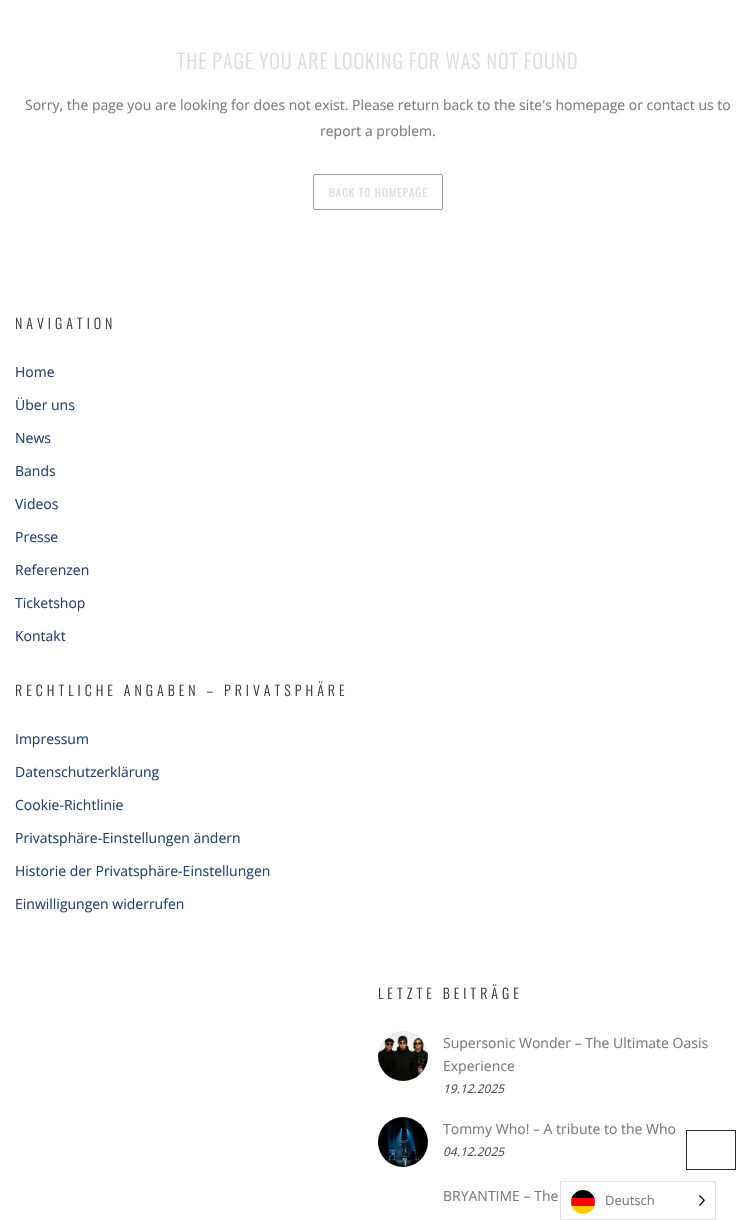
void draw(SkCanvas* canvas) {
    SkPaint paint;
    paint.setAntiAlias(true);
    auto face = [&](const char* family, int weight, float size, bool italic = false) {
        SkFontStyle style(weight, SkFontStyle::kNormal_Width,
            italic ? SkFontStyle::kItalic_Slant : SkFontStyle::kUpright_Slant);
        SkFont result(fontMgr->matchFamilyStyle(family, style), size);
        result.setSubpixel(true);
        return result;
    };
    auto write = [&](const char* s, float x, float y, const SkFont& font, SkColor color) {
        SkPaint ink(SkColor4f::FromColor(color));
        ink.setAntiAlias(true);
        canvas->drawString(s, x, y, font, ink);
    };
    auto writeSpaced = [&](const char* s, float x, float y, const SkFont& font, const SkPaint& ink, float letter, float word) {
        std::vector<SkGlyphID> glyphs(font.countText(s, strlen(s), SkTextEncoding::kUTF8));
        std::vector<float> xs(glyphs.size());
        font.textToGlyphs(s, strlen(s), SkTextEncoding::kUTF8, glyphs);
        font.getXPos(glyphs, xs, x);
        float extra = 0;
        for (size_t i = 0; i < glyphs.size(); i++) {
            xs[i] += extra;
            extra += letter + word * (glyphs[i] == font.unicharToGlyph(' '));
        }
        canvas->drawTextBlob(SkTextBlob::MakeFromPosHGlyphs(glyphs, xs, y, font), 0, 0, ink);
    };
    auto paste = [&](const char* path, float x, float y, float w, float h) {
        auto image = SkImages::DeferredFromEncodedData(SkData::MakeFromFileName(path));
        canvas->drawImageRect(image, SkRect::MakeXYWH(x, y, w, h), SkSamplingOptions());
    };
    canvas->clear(SK_ColorWHITE);
    auto kFont1 = face("Oswald", 300, 20);
    paint.setColor(SkColorSetRGB(220, 220, 220));
    writeSpaced("THE PAGE YOU ARE LOOKING FOR WAS NOT FOUND", 177, 69, kFont1, paint, 1, 0);
    auto kFont2 = face("Open Sans", 400, 14);
    write("Sorry, the page you are looking for does not exist. Please return back to the site's homepage or contact us to", 25, 110, kFont2, SkColorSetRGB(123, 123, 123));
    write("report a problem.", 320, 136, kFont2, SkColorSetRGB(123, 123, 123));
    paint.setStyle(SkPaint::kStroke_Style);
    paint.setStrokeWidth(1);
    paint.setColor(SkColorSetRGB(156, 156, 156));
    canvas->drawRoundRect(SkRect::MakeXYWH(313.5f, 174.5f, 129, 35), 1.5f, 1.5f, paint);
    auto kFont3 = face("Oswald", 400, 11);
    paint.setStyle(SkPaint::kFill_Style);
    paint.setColor(SkColorSetRGB(220, 220, 220));
    writeSpaced("BACK TO HOMEPAGE", 329, 197, kFont3, paint, 1, 0);
    auto kFont4 = face("Oswald", 300, 14);
    paint.setColor(SkColorSetRGB(56, 56, 56));
    writeSpaced("NAVIGATION", 15, 329, kFont4, paint, 4, 0);
    write("Home", 15, 377, kFont2, SkColorSetRGB(37, 66, 105));
    write("Über uns", 15, 410, kFont2, SkColorSetRGB(37, 66, 105));
    write("News", 15, 443, kFont2, SkColorSetRGB(37, 66, 105));
    write("Bands", 15, 476, kFont2, SkColorSetRGB(37, 66, 105));
    write("Videos", 15, 509, kFont2, SkColorSetRGB(37, 66, 105));
    write("Presse", 15, 542, kFont2, SkColorSetRGB(37, 66, 105));
    write("Referenzen", 15, 575, kFont2, SkColorSetRGB(37, 66, 105));
    write("Ticketshop", 15, 608, kFont2, SkColorSetRGB(37, 66, 105));
    write("Kontakt", 15, 641, kFont2, SkColorSetRGB(37, 66, 105));
    writeSpaced("RECHTLICHE ANGABEN – PRIVATSPHÄRE", 15, 696, kFont4, paint, 4, 0);
    write("Impressum", 15, 744, kFont2, SkColorSetRGB(37, 66, 105));
    write("Datenschutzerklärung", 15, 777, kFont2, SkColorSetRGB(37, 66, 105));
    write("Cookie-Richtlinie", 15, 810, kFont2, SkColorSetRGB(37, 66, 105));
    write("Privatsphäre-Einstellungen ändern", 15, 843, kFont2, SkColorSetRGB(37, 66, 105));
    write("Historie der Privatsphäre-Einstellungen", 15, 876, kFont2, SkColorSetRGB(37, 66, 105));
    write("Einwilligungen widerrufen", 15, 909, kFont2, SkColorSetRGB(37, 66, 105));
    writeSpaced("LETZTE BEITRÄGE", 378, 999, kFont4, paint, 4, 0);
    paste("pic1.png", 378, 1031, 50, 50);
    write("Supersonic Wonder – The Ultimate Oasis", 443, 1048, kFont2, SkColorSetRGB(123, 123, 123));
    write("Experience", 443, 1071, kFont2, SkColorSetRGB(123, 123, 123));
    auto kFont5 = face("Open Sans", 400, 12, true);
    write("19.12.2025", 443, 1093, kFont5, SkColorSetRGB(78, 78, 78));
    paste("pic2.png", 378, 1117, 50, 50);
    write("Tommy Who! – A tribute to the Who", 443, 1134, kFont2, SkColorSetRGB(123, 123, 123));
    write("04.12.2025", 443, 1156, kFont5, SkColorSetRGB(78, 78, 78));
    write("BRYANTIME – The", 443, 1201, kFont2, SkColorSetRGB(123, 123, 123));
    paint.setStyle(SkPaint::kStroke_Style);
    paint.setColor(SkColorSetRGB(44, 44, 44));
    canvas->drawRect(SkRect::MakeXYWH(686.5f, 1130.5f, 49, 39), paint);
    paint.setColor(SkColorSetRGB(224, 224, 224));
    canvas->drawRect(SkRect::MakeXYWH(560.5f, 1181.5f, 155, 38), paint);
    paint.setStyle(SkPaint::kFill_Style);
    paint.setColor(SkColorSetRGB(255, 204, 0));
    canvas->drawPath(SkPathBuilder().moveTo(594.5f, 1206).cubicTo(590.5f, 1216.5f, 575.5f, 1216.5f, 571.5f, 1206).close().detach(), paint);
    paint.setColor(SkColorSetRGB(0, 0, 1));
    canvas->drawPath(SkPathBuilder().moveTo(583, 1190).cubicTo(588, 1190, 592.5f, 1193.5f, 594.5f, 1198).lineTo(571.5f, 1198).cubicTo(573.5f, 1193.5f, 578, 1190, 583, 1190).close().detach(), paint);
    paint.setColor(SkColorSetRGB(255, 0, 0));
    canvas->drawPath(SkPathBuilder().moveTo(571.5f, 1206).cubicTo(571, 1203.5f, 571, 1200.5f, 571.5f, 1198).lineTo(594.5f, 1198).cubicTo(595, 1200.5f, 595, 1203.5f, 594.5f, 1206).close().detach(), paint);
    auto kFont6 = face("Open Sans", 400, 13);
    write("Deutsch", 605, 1205, kFont6, SkColorSetRGB(123, 123, 123));
    paste("pic3.png", 699, 1195, 6, 11);
}
